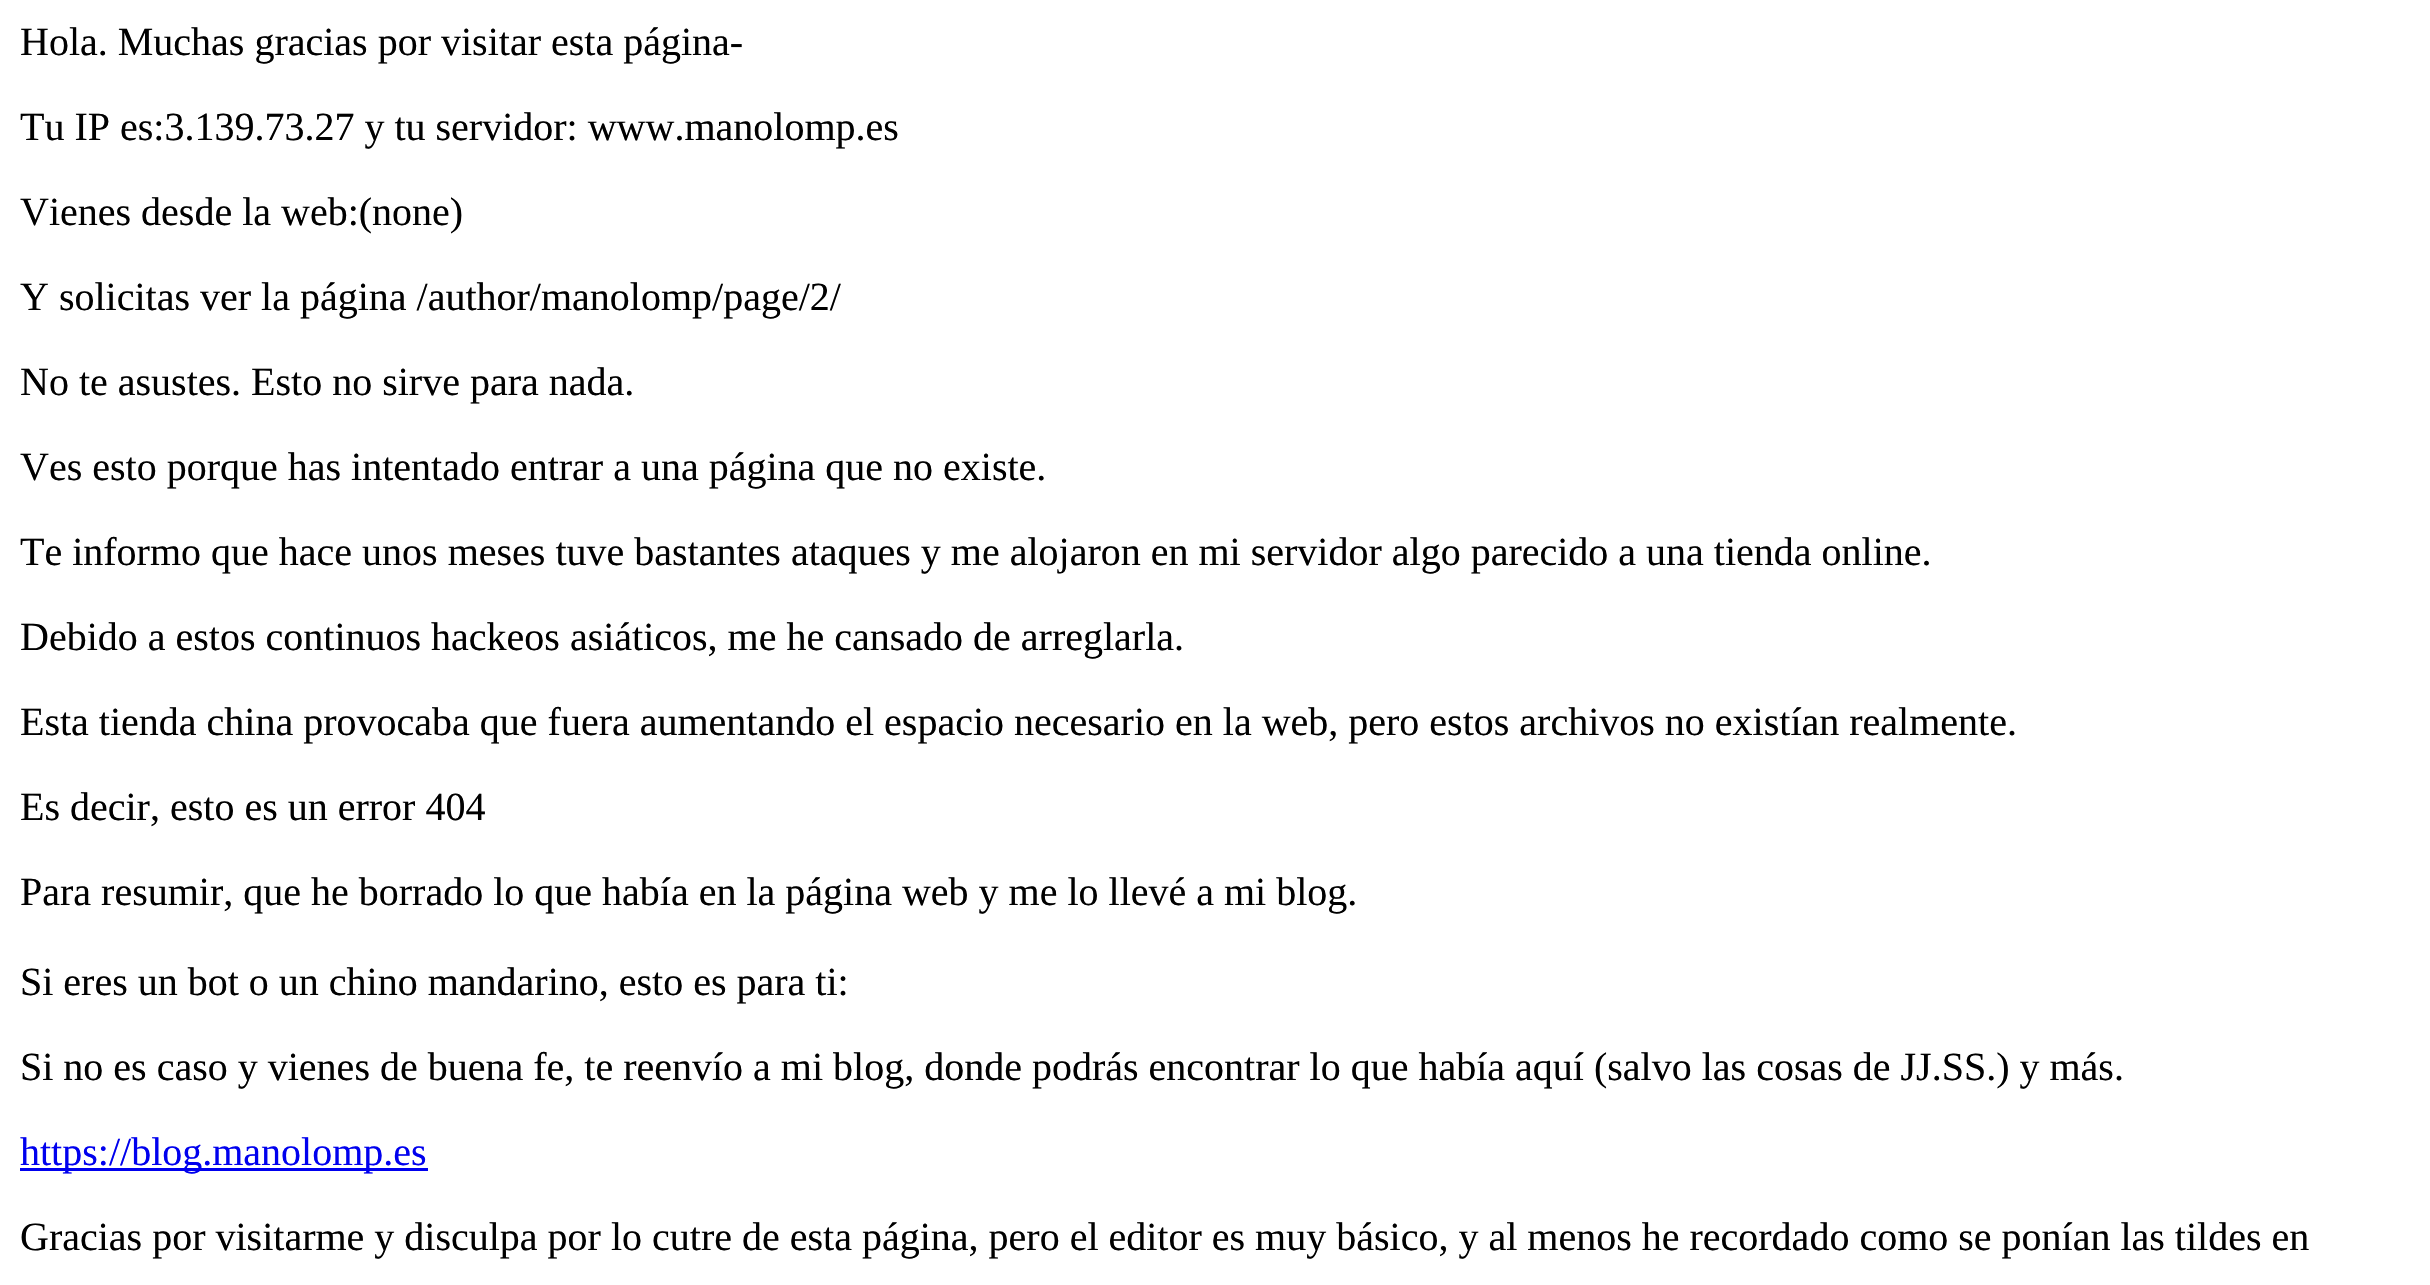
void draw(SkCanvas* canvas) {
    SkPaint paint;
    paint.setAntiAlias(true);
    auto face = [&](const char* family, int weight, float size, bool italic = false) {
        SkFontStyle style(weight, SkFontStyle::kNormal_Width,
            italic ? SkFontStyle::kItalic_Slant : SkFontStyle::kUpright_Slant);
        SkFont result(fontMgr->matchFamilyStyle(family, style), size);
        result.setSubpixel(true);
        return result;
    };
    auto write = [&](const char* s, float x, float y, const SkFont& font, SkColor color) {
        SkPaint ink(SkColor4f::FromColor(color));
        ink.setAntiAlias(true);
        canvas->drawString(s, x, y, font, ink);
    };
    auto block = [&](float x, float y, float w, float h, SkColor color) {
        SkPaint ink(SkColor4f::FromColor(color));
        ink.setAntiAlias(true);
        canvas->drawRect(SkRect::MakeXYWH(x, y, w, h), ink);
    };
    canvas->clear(SK_ColorWHITE);
    auto kFont1 = face("Liberation Serif", 400, 40);
    write("Hola. Muchas gracias por visitar esta página-", 20, 55, kFont1, SK_ColorBLACK);
    write("Tu IP es:3.139.73.27 y tu servidor: www.manolomp.es", 20, 140, kFont1, SK_ColorBLACK);
    write("Vienes desde la web:(none)", 20, 225, kFont1, SK_ColorBLACK);
    write("Y solicitas ver la página /author/manolomp/page/2/", 20, 310, kFont1, SK_ColorBLACK);
    write("No te asustes. Esto no sirve para nada.", 20, 395, kFont1, SK_ColorBLACK);
    write("Ves esto porque has intentado entrar a una página que no existe.", 20, 480, kFont1, SK_ColorBLACK);
    write("Te informo que hace unos meses tuve bastantes ataques y me alojaron en mi servidor algo parecido a una tienda online.", 20, 565, kFont1, SK_ColorBLACK);
    write("Debido a estos continuos hackeos asiáticos, me he cansado de arreglarla.", 20, 650, kFont1, SK_ColorBLACK);
    write("Esta tienda china provocaba que fuera aumentando el espacio necesario en la web, pero estos archivos no existían realmente.", 20, 735, kFont1, SK_ColorBLACK);
    write("Es decir, esto es un error 404", 20, 820, kFont1, SK_ColorBLACK);
    write("Para resumir, que he borrado lo que había en la página web y me lo llevé a mi blog.", 20, 905, kFont1, SK_ColorBLACK);
    write("Si eres un bot o un chino mandarino, esto es para ti:", 20, 995, kFont1, SK_ColorBLACK);
    write("Si no es caso y vienes de buena fe, te reenvío a mi blog, donde podrás encontrar lo que había aquí (salvo las cosas de JJ.SS.) y más.", 20, 1080, kFont1, SK_ColorBLACK);
    block(20, 1168, 408, 3, SkColorSetRGB(0, 0, 238));
    write("https://blog.manolomp.es", 20, 1165, kFont1, SkColorSetRGB(0, 0, 238));
    write("Gracias por visitarme y disculpa por lo cutre de esta página, pero el editor es muy básico, y al menos he recordado como se ponían las tildes en", 20, 1250, kFont1, SK_ColorBLACK);
}
